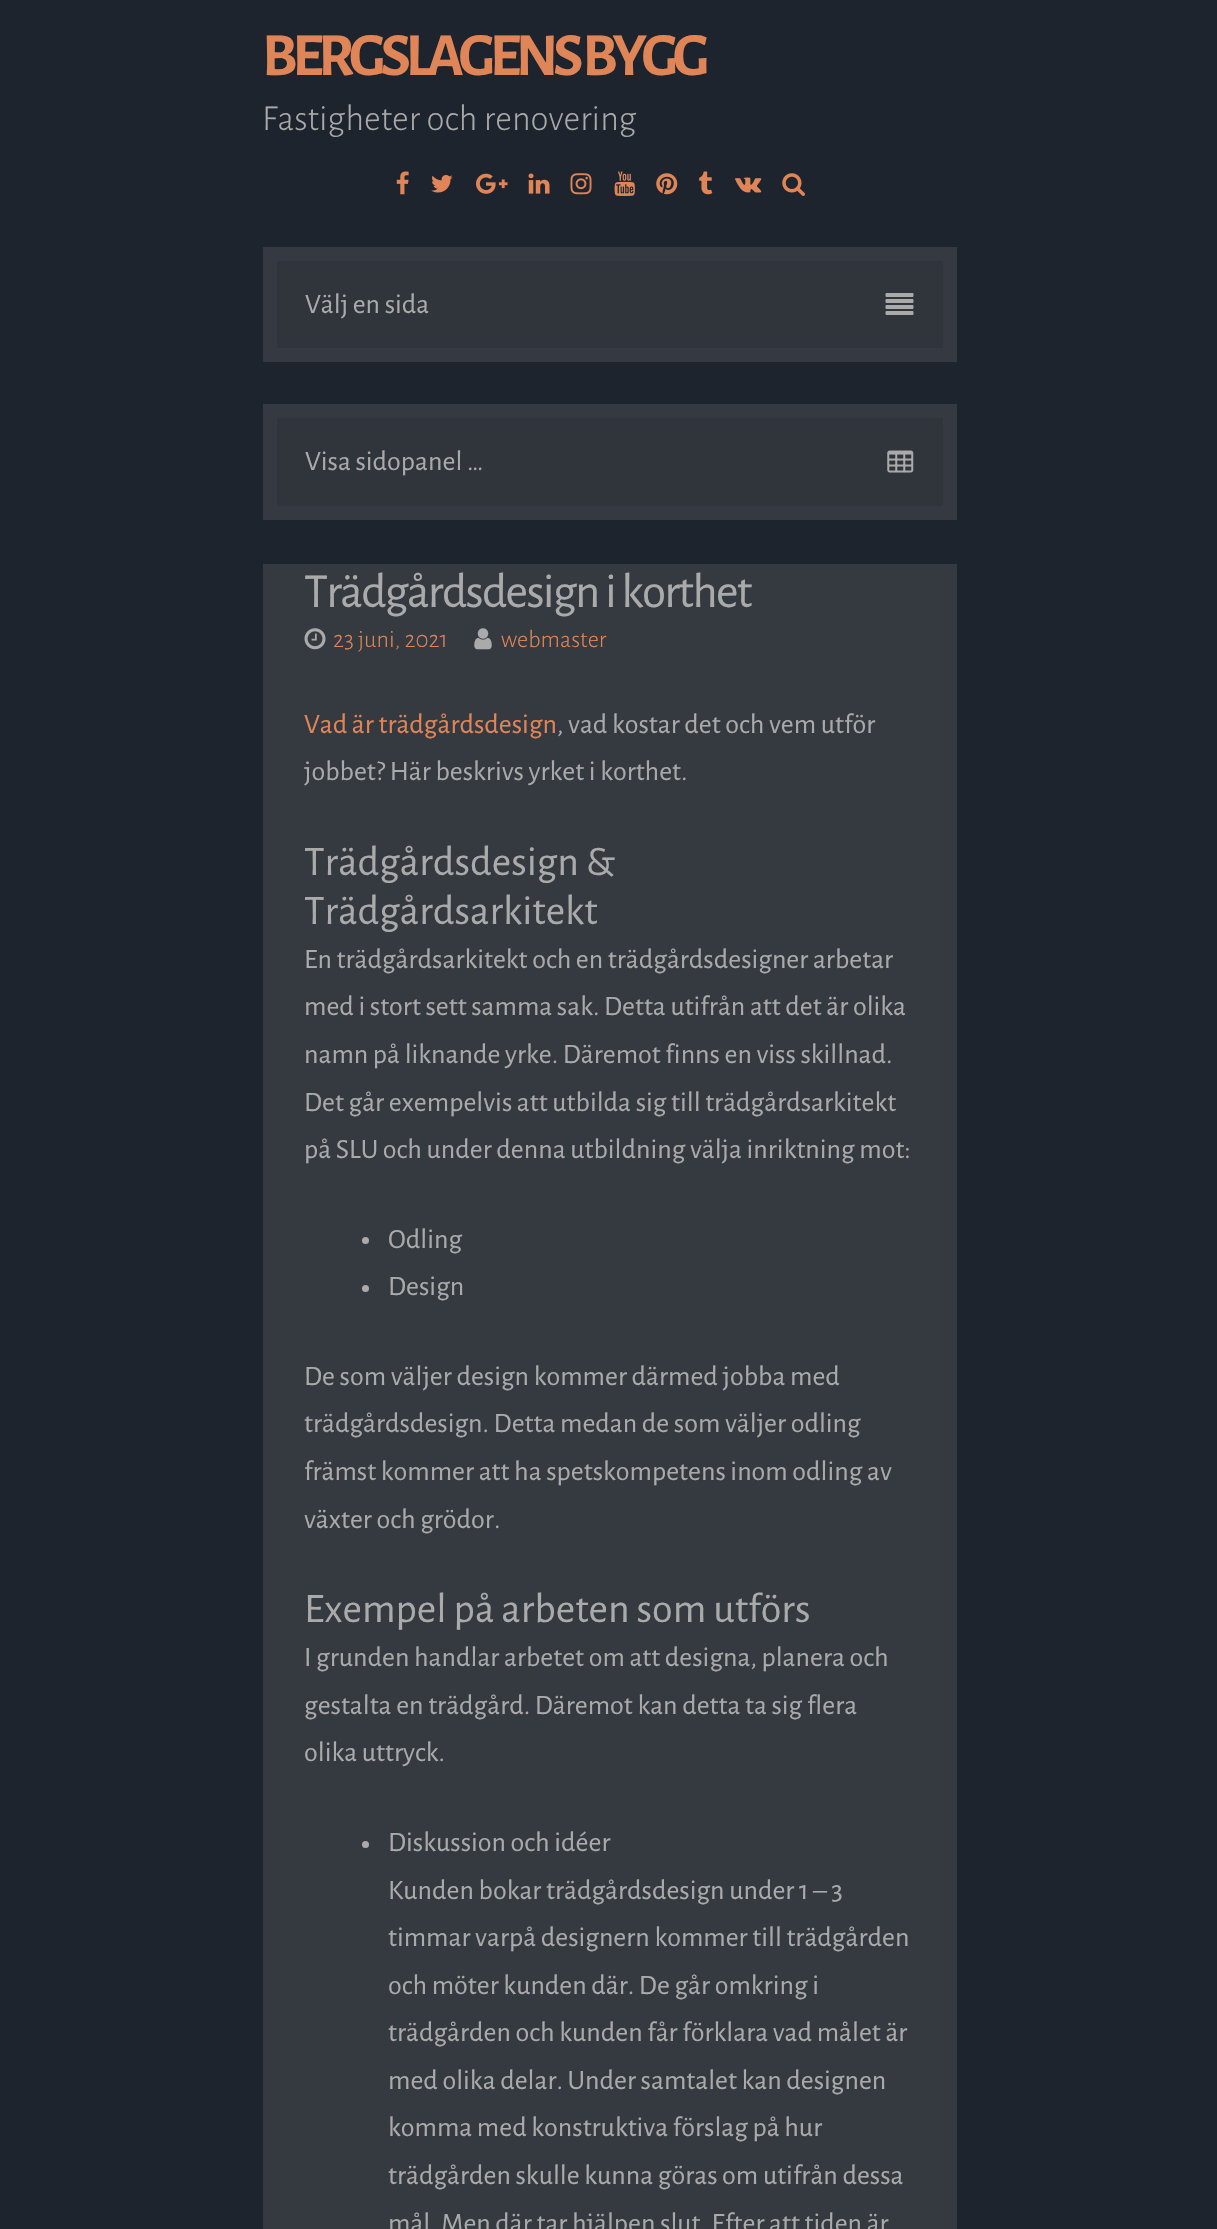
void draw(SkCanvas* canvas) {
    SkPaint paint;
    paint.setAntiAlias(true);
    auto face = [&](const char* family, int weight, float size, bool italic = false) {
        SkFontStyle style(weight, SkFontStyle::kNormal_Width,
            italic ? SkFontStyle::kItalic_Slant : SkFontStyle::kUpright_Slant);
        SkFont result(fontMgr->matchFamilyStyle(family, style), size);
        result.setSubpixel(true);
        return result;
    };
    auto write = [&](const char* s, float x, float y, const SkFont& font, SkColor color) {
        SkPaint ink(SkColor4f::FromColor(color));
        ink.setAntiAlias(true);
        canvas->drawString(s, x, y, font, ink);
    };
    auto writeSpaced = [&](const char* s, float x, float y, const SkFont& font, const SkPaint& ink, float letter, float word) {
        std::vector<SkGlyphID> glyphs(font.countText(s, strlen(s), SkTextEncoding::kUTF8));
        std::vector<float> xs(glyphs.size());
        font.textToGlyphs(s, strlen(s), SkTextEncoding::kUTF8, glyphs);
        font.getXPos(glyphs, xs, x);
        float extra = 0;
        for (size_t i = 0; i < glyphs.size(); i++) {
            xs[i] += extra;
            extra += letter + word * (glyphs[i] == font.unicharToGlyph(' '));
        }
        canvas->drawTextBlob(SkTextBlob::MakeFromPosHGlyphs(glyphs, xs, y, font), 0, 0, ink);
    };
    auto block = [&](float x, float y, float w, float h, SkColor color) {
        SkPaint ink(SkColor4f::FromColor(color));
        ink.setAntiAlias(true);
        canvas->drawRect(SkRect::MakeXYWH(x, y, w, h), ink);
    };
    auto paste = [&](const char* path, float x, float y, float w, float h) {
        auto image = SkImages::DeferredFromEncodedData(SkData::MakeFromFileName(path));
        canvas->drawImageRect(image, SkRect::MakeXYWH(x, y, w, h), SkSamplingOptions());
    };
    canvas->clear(SkColorSetRGB(30, 36, 45));
    auto kFont1 = face("Alegreya Sans", 700, 61.25f);
    paint.setColor(SkColorSetRGB(224, 133, 87));
    writeSpaced("BERGSLAGENS BYGG", 262, 75, kFont1, paint, -5.25f, 0);
    auto kFont2 = face("Alegreya Sans", 300, 36.75f);
    write("Fastigheter och renovering", 262, 130, kFont2, SkColorSetRGB(170, 170, 170));
    paste("pic1.png", 396, 171, 13, 24);
    paste("pic2.png", 431, 175, 22, 18);
    paste("pic3.png", 476, 173, 32, 21);
    paste("pic4.png", 528, 173, 22, 21);
    paste("pic5.png", 570, 173, 22, 22);
    paste("pic6.png", 614, 171, 21, 25);
    paste("pic7.png", 656, 173, 22, 22);
    paste("pic8.png", 699, 171, 14, 24);
    paste("pic9.png", 735, 177, 27, 16);
    paste("pic10.png", 782, 173, 23, 23);
    block(263, 247, 694, 115, SkColorSetRGB(53, 58, 66));
    block(277, 261, 666, 87, SkColorSetRGB(48, 52, 59));
    auto kFont3 = face("Alegreya Sans", 400, 28);
    write("Välj en sida", 305, 313, kFont3, SkColorSetRGB(170, 170, 170));
    paste("pic11.png", 885, 293, 29, 22);
    block(263, 404, 694, 116, SkColorSetRGB(53, 58, 66));
    block(277, 418, 666, 88, SkColorSetRGB(48, 52, 59));
    write("Visa sidopanel …", 305, 470, kFont3, SkColorSetRGB(170, 170, 170));
    paste("pic12.png", 887, 450, 27, 23);
    block(263, 564, 694, 1665, SkColorSetRGB(53, 58, 65));
    auto kFont4 = face("Alegreya Sans", 400, 49);
    paint.setColor(SkColorSetRGB(170, 170, 170));
    writeSpaced("Trädgårdsdesign i korthet", 304, 607, kFont4, paint, -1.75f, 0);
    paste("pic13.png", 304, 628, 22, 22);
    auto kFont5 = face("Alegreya Sans", 300, 24.5f);
    write("23 juni, 2021", 333, 647, kFont5, SkColorSetRGB(224, 133, 87));
    paste("pic14.png", 474, 628, 18, 22);
    write("webmaster", 501, 647, kFont5, SkColorSetRGB(224, 133, 87));
    write("Vad är trädgårdsdesign", 304, 733, kFont3, SkColorSetRGB(224, 133, 87));
    write(", vad kostar det och vem utför", 557, 733, kFont3, SkColorSetRGB(170, 170, 170));
    write("jobbet? Här beskrivs yrket i korthet.", 304, 780, kFont3, SkColorSetRGB(170, 170, 170));
    auto kFont6 = face("Alegreya Sans", 400, 42);
    write("Trädgårdsdesign &", 304, 875, kFont6, SkColorSetRGB(170, 170, 170));
    write("Trädgårdsarkitekt", 304, 924, kFont6, SkColorSetRGB(170, 170, 170));
    write("En trädgårdsarkitekt och en trädgårdsdesigner arbetar", 304, 968, kFont3, SkColorSetRGB(170, 170, 170));
    write("med i stort sett samma sak. Detta utifrån att det är olika", 304, 1015, kFont3, SkColorSetRGB(170, 170, 170));
    write("namn på liknande yrke. Däremot finns en viss skillnad.", 304, 1063, kFont3, SkColorSetRGB(170, 170, 170));
    write("Det går exempelvis att utbilda sig till trädgårdsarkitekt", 304, 1111, kFont3, SkColorSetRGB(170, 170, 170));
    write("på SLU och under denna utbildning välja inriktning mot:", 304, 1158, kFont3, SkColorSetRGB(170, 170, 170));
    canvas->drawCircle(365.5f, 1240.5f, 3.5f, paint);
    write("Odling", 388, 1248, kFont3, SkColorSetRGB(170, 170, 170));
    canvas->drawCircle(365.5f, 1288.5f, 3.5f, paint);
    write("Design", 388, 1295, kFont3, SkColorSetRGB(170, 170, 170));
    write("De som väljer design kommer därmed jobba med", 304, 1385, kFont3, SkColorSetRGB(170, 170, 170));
    write("trädgårdsdesign. Detta medan de som väljer odling", 304, 1432, kFont3, SkColorSetRGB(170, 170, 170));
    write("främst kommer att ha spetskompetens inom odling av", 304, 1480, kFont3, SkColorSetRGB(170, 170, 170));
    write("växter och grödor.", 304, 1528, kFont3, SkColorSetRGB(170, 170, 170));
    write("Exempel på arbeten som utförs", 304, 1622, kFont6, SkColorSetRGB(170, 170, 170));
    write("I grunden handlar arbetet om att designa, planera och", 304, 1666, kFont3, SkColorSetRGB(170, 170, 170));
    write("gestalta en trädgård. Däremot kan detta ta sig flera", 304, 1714, kFont3, SkColorSetRGB(170, 170, 170));
    write("olika uttryck.", 304, 1761, kFont3, SkColorSetRGB(170, 170, 170));
    canvas->drawCircle(365.5f, 1844.5f, 3.5f, paint);
    write("Diskussion och idéer", 388, 1851, kFont3, SkColorSetRGB(170, 170, 170));
    write("Kunden bokar trädgårdsdesign under 1 – 3", 388, 1899, kFont3, SkColorSetRGB(170, 170, 170));
    write("timmar varpå designern kommer till trädgården", 388, 1946, kFont3, SkColorSetRGB(170, 170, 170));
    write("och möter kunden där. De går omkring i", 388, 1994, kFont3, SkColorSetRGB(170, 170, 170));
    write("trädgården och kunden får förklara vad målet är", 388, 2041, kFont3, SkColorSetRGB(170, 170, 170));
    write("med olika delar. Under samtalet kan designen", 388, 2089, kFont3, SkColorSetRGB(170, 170, 170));
    write("komma med konstruktiva förslag på hur", 388, 2136, kFont3, SkColorSetRGB(170, 170, 170));
    write("trädgården skulle kunna göras om utifrån dessa", 388, 2184, kFont3, SkColorSetRGB(170, 170, 170));
    write("mål. Men där tar hjälpen slut. Efter att tiden är", 388, 2232, kFont3, SkColorSetRGB(170, 170, 170));
}
